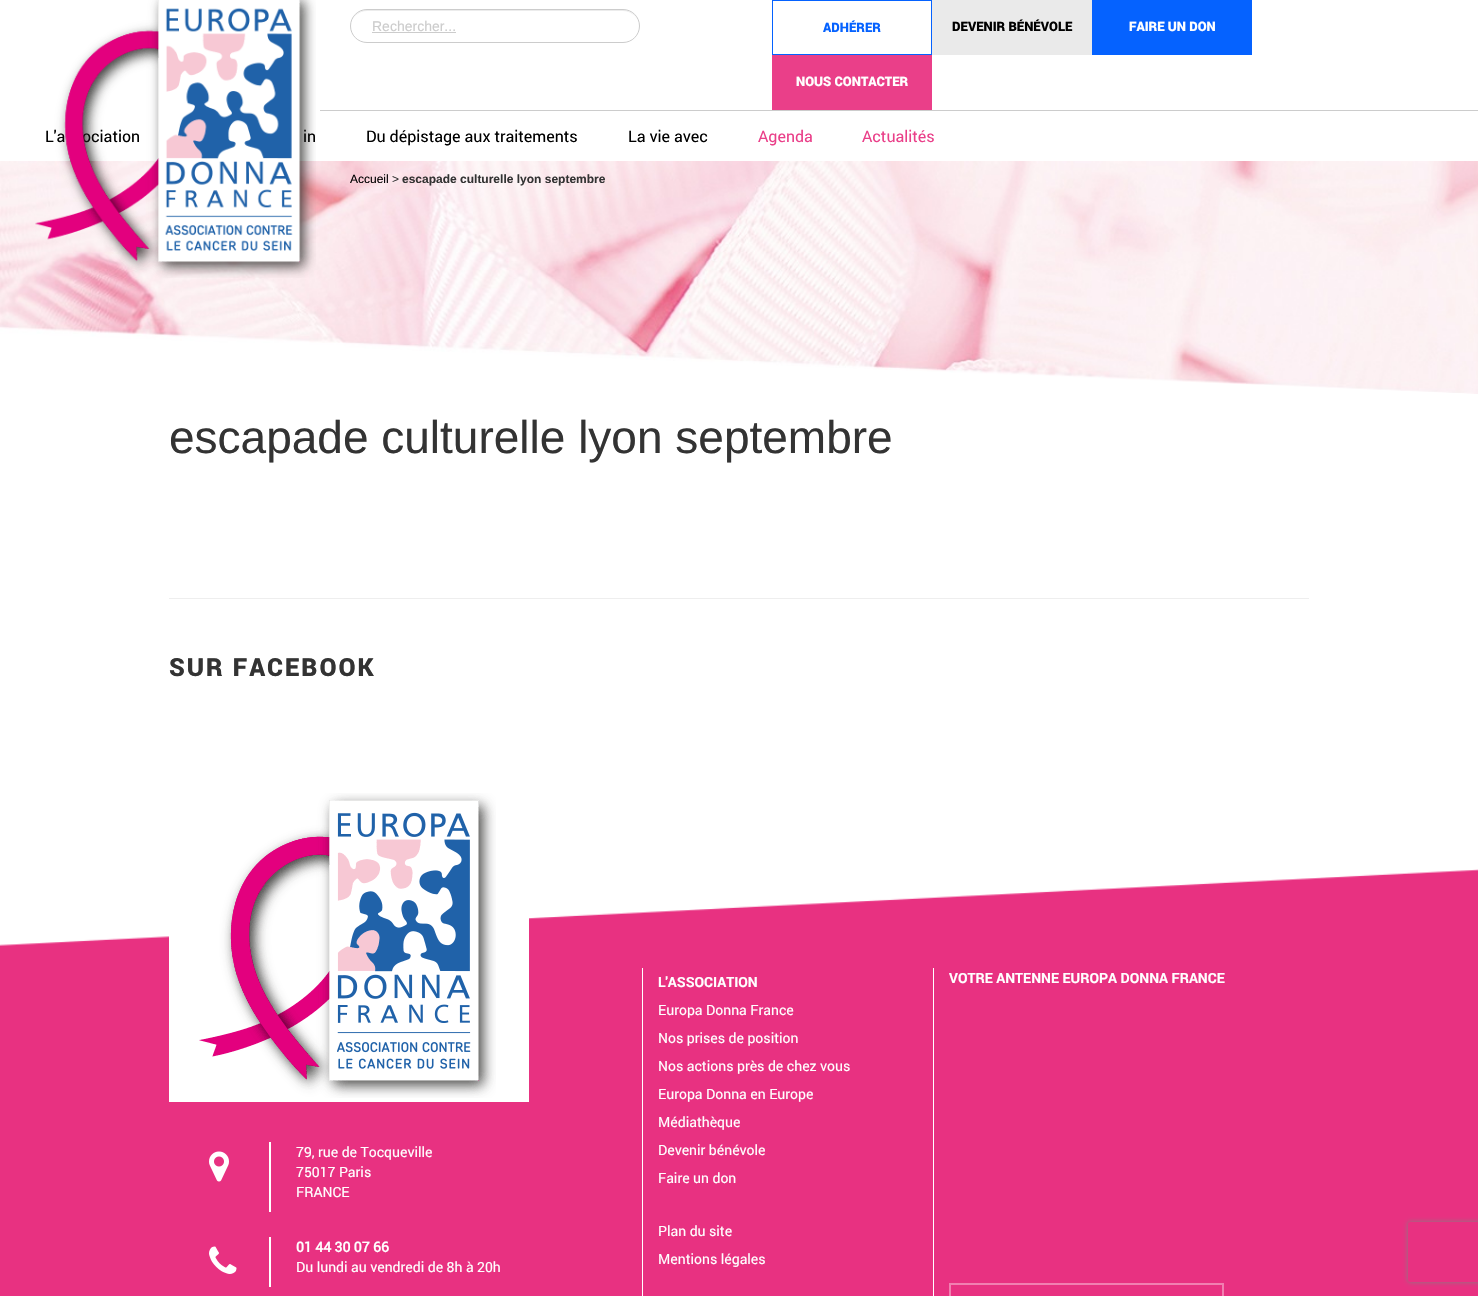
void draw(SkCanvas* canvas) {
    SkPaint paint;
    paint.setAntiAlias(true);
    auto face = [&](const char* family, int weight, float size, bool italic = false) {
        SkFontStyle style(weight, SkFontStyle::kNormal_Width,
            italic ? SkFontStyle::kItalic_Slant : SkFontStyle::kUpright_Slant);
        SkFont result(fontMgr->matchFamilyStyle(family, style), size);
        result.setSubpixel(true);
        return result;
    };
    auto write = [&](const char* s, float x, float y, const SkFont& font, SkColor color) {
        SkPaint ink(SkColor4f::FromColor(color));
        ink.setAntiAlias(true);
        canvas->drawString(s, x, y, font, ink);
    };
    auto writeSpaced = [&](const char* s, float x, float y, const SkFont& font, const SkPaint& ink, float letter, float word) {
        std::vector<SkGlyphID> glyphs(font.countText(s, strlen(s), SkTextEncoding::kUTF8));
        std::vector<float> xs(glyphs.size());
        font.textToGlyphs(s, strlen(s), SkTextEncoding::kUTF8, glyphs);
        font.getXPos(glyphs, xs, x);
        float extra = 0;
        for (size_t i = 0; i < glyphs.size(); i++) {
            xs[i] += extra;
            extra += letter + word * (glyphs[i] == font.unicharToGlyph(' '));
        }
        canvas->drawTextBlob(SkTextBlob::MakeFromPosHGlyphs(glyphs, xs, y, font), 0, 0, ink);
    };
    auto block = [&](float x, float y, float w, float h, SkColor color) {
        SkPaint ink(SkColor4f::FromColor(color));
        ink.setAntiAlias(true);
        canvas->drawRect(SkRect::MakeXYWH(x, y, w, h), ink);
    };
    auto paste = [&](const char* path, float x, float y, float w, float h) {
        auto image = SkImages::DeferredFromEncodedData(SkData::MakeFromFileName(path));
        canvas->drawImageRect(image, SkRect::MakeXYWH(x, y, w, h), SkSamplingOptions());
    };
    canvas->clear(SK_ColorWHITE);
    auto kFont1 = face("Roboto", 400, 16);
    write("L'a", 45, 142, kFont1, SK_ColorBLACK);
    write("ociation", 82, 142, kFont1, SK_ColorBLACK);
    write("in", 303, 142, kFont1, SK_ColorBLACK);
    paste("pic2.png", 0, 161, 1478, 233);
    paste("pic1.png", 35, 0, 281, 278);
    block(320, 110, 1158, 1, SkColorSetRGB(204, 204, 204));
    paint.setColor(SkColorSetRGB(236, 236, 236));
    canvas->drawPath(SkPathBuilder().moveTo(367, 11).lineTo(623, 11).cubicTo(632, 11, 639, 18, 639, 26).cubicTo(639, 18, 632, 10, 623, 10).lineTo(367, 10).cubicTo(358, 10, 351, 18, 351, 26).cubicTo(351, 18, 358, 11, 367, 11).close().detach(), paint);
    paint.setStyle(SkPaint::kStroke_Style);
    paint.setStrokeWidth(1);
    paint.setColor(SkColorSetRGB(204, 204, 204));
    canvas->drawRoundRect(SkRect::MakeXYWH(350.5f, 9.5f, 289, 33), 16.5f, 16.5f, paint);
    auto kFont2 = face("Liberation Sans", 400, 14);
    write("Rechercher...", 372, 31, kFont2, SkColorSetRGB(204, 204, 204));
    block(372, 32, 84, 1, SkColorSetRGB(204, 204, 204));
    paint.setColor(SkColorSetRGB(5, 98, 255));
    canvas->drawRect(SkRect::MakeXYWH(772.5f, 0.5f, 159, 54), paint);
    auto kFont3 = face("Roboto", 900, 13);
    write("ADHÉRER", 823, 32, kFont3, SkColorSetRGB(5, 98, 255));
    block(932, 0, 160, 55, SkColorSetRGB(234, 234, 234));
    write("DEVENIR BÉNÉVOLE", 952, 31, kFont3, SK_ColorBLACK);
    block(1092, 0, 160, 55, SkColorSetRGB(5, 98, 255));
    write("FAIRE UN DON", 1129, 31, kFont3, SK_ColorWHITE);
    block(772, 55, 160, 55, SkColorSetRGB(234, 63, 137));
    write("NOUS CONTACTER", 796, 86, kFont3, SK_ColorWHITE);
    write("Du dépistage aux traitements", 366, 142, kFont1, SK_ColorBLACK);
    write("La vie avec", 628, 142, kFont1, SK_ColorBLACK);
    write("Agenda", 758, 142, kFont1, SkColorSetRGB(234, 63, 137));
    write("Actualités", 862, 142, kFont1, SkColorSetRGB(234, 63, 137));
    auto kFont4 = face("Liberation Sans", 400, 12);
    write("Accueil", 350, 183, kFont4, SK_ColorBLACK);
    write(">", 392, 183, kFont4, SkColorSetRGB(51, 51, 51));
    auto kFont5 = face("Liberation Sans", 700, 12);
    write("escapade culturelle lyon septembre", 402, 183, kFont5, SkColorSetRGB(51, 51, 51));
    auto kFont6 = face("Liberation Sans", 400, 46);
    write("escapade culturelle lyon septembre", 169, 453, kFont6, SkColorSetRGB(51, 51, 51));
    block(169, 598, 1140, 1, SkColorSetRGB(238, 238, 238));
    auto kFont7 = face("Roboto", 900, 25);
    paint.setStyle(SkPaint::kFill_Style);
    paint.setColor(SkColorSetRGB(51, 51, 51));
    writeSpaced("SUR FACEBOOK", 169, 676, kFont7, paint, 2, 0);
    paste("pic3.png", 0, 869, 1478, 427);
    block(169, 918, 360, 184, SK_ColorWHITE);
    paste("pic4.png", 199, 793, 297, 305);
    paste("pic5.png", 209, 1151, 20, 31);
    block(269, 1142, 2, 70, SK_ColorWHITE);
    auto kFont8 = face("Roboto", 400, 14);
    write("79, rue de Tocqueville", 296, 1157, kFont8, SK_ColorWHITE);
    write("75017 Paris", 296, 1177, kFont8, SK_ColorWHITE);
    write("FRANCE", 296, 1197, kFont8, SK_ColorWHITE);
    paste("pic6.png", 209, 1246, 28, 28);
    block(269, 1237, 2, 50, SK_ColorWHITE);
    auto kFont9 = face("Roboto", 700, 14);
    write("01 44 30 07 66", 296, 1252, kFont9, SK_ColorWHITE);
    write("Du lundi au vendredi de 8h à 20h", 296, 1272, kFont8, SK_ColorWHITE);
    block(933, 968, 1, 328, SK_ColorWHITE);
    block(642, 968, 1, 328, SK_ColorWHITE);
    auto kFont10 = face("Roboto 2", 700, 14);
    write("L'ASSOCIATION", 658, 987, kFont10, SK_ColorWHITE);
    write("Europa Donna France", 658, 1015, kFont8, SK_ColorWHITE);
    write("Nos prises de position", 658, 1043, kFont8, SK_ColorWHITE);
    write("Nos actions près de chez vous", 658, 1071, kFont8, SK_ColorWHITE);
    write("Europa Donna en Europe", 658, 1099, kFont8, SK_ColorWHITE);
    write("Médiathèque", 658, 1127, kFont8, SK_ColorWHITE);
    write("Devenir bénévole", 658, 1155, kFont8, SK_ColorWHITE);
    write("Faire un don", 658, 1183, kFont8, SK_ColorWHITE);
    write("Plan du site", 658, 1236, kFont8, SK_ColorWHITE);
    write("Mentions légales", 658, 1264, kFont8, SK_ColorWHITE);
    write("VOTRE ANTENNE EUROPA DONNA FRANCE", 949, 983, kFont10, SK_ColorWHITE);
    paint.setStyle(SkPaint::kStroke_Style);
    paint.setStrokeWidth(2);
    paint.setColor(SkColorSetRGB(241, 127, 177));
    canvas->drawRect(SkRect::MakeXYWH(950, 1284, 273, 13), paint);
    canvas->save();
    canvas->clipPath(SkPathBuilder(SkPathFillType::kEvenOdd).moveTo(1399, 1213).lineTo(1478, 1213).lineTo(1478, 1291).lineTo(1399, 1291).close().moveTo(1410, 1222).lineTo(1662, 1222).cubicTo(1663, 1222, 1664, 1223, 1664, 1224).lineTo(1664, 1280).cubicTo(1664, 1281, 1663, 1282, 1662, 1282).lineTo(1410, 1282).cubicTo(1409, 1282, 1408, 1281, 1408, 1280).lineTo(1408, 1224).cubicTo(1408, 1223, 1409, 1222, 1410, 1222).close().detach(), true);
    paint.setStyle(SkPaint::kFill_Style);
    paint.setColor(SkColorSetRGB(128, 128, 128));
    paint.setMaskFilter(SkMaskFilter::MakeBlur(kNormal_SkBlurStyle, 2.5f));
    canvas->drawRoundRect(SkRect::MakeXYWH(1408, 1222, 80, 60), 2, 2, paint);
    paint.setMaskFilter(nullptr);
    canvas->restore();
}
